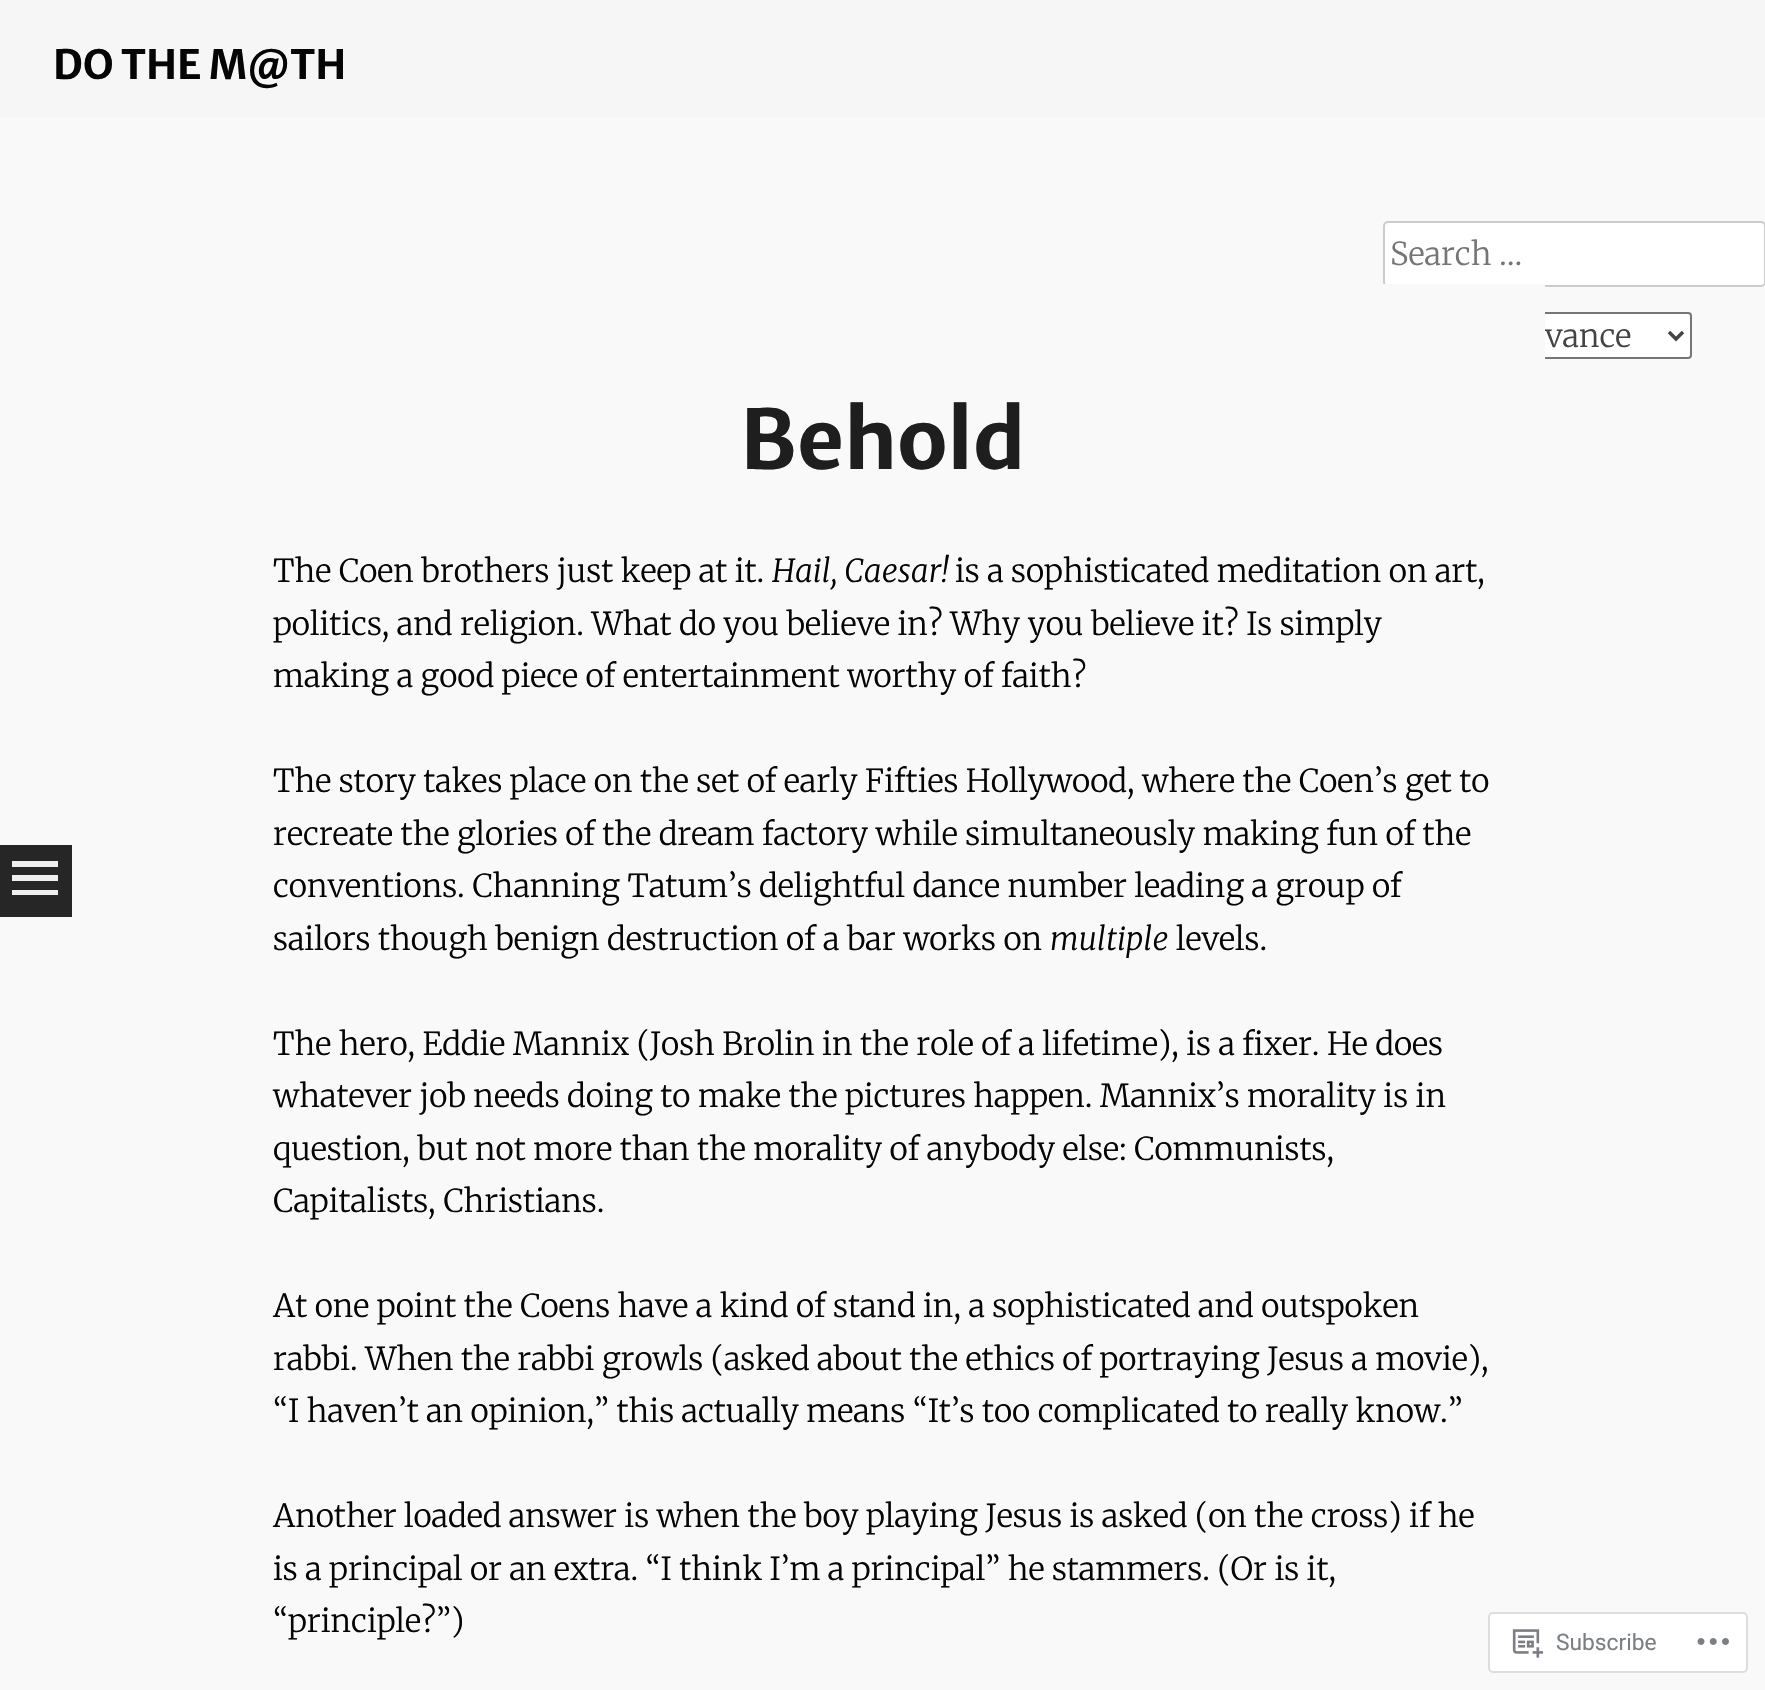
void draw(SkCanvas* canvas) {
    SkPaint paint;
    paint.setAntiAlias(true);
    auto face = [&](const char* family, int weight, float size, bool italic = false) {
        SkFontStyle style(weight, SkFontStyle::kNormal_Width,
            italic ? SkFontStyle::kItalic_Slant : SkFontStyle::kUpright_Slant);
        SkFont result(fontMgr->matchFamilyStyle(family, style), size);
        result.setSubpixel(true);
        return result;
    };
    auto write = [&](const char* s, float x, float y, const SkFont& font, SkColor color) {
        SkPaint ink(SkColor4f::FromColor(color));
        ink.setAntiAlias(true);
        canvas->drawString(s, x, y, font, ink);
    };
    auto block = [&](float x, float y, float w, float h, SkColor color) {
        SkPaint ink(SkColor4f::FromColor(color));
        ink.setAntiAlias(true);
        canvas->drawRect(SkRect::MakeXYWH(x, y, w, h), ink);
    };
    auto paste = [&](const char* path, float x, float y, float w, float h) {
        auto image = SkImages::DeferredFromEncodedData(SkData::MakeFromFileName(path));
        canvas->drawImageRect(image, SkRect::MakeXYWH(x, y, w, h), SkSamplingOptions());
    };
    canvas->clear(SkColorSetRGB(249, 249, 249));
    block(0, 0, 1765, 117, SkColorSetRGB(246, 246, 246));
    auto kFont1 = face("Merriweather Sans", 700, 40.25f);
    write("DO THE M@TH", 53, 79, kFont1, SkColorSetRGB(5, 5, 5));
    paint.setColor(SK_ColorWHITE);
    canvas->drawRoundRect(SkRect::MakeXYWH(1384, 222, 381, 64), 4, 4, paint);
    paint.setStyle(SkPaint::kStroke_Style);
    paint.setStrokeWidth(2);
    paint.setColor(SkColorSetRGB(204, 204, 204));
    canvas->drawRoundRect(SkRect::MakeXYWH(1384, 222, 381, 64), 4, 4, paint);
    auto kFont2 = face("Merriweather", 300, 31.5f);
    write("Search …", 1390, 265, kFont2, SkColorSetRGB(117, 117, 117));
    paint.setStyle(SkPaint::kFill_Style);
    paint.setColor(SK_ColorWHITE);
    canvas->drawRoundRect(SkRect::MakeXYWH(1475, 313, 216, 45), 3, 3, paint);
    paint.setStyle(SkPaint::kStroke_Style);
    paint.setColor(SkColorSetRGB(118, 118, 118));
    canvas->drawRoundRect(SkRect::MakeXYWH(1475, 313, 216, 45), 3, 3, paint);
    paint.setStrokeWidth(3.5f);
    paint.setColor(SkColorSetRGB(68, 68, 68));
    canvas->drawPath(SkPathBuilder().moveTo(1669, 332).lineTo(1676, 339).lineTo(1683, 332).detach(), paint);
    write("vance", 1545, 347, kFont2, SkColorSetRGB(68, 68, 68));
    block(0, 845, 72, 72, SkColorSetRGB(38, 38, 38));
    paint.setStyle(SkPaint::kFill_Style);
    paint.setColor(SkColorSetRGB(239, 239, 239));
    canvas->drawPath(SkPathBuilder().moveTo(58, 861).lineTo(58, 867).lineTo(12, 867).lineTo(12, 861).close().moveTo(12, 875).lineTo(58, 875).lineTo(58, 881).lineTo(12, 881).close().moveTo(12, 890).lineTo(58, 890).lineTo(58, 895).lineTo(12, 895).close().detach(), paint);
    block(1383, 284, 162, 75, SkColorSetRGB(249, 249, 249));
    auto kFont3 = face("Merriweather Sans", 700, 82);
    write("Behold", 740, 469, kFont3, SkColorSetRGB(30, 30, 30));
    write("The Coen brothers just keep at it.", 273, 582, kFont2, SkColorSetRGB(5, 5, 5));
    auto kFont4 = face("Merriweather", 300, 31.5f, true);
    write("Hail, Caesar!", 772, 582, kFont4, SkColorSetRGB(5, 5, 5));
    write("is a sophisticated meditation on art,", 955, 582, kFont2, SkColorSetRGB(5, 5, 5));
    write("politics, and religion. What do you believe in? Why you believe it? Is simply", 273, 635, kFont2, SkColorSetRGB(5, 5, 5));
    write("making a good piece of entertainment worthy of faith?", 273, 687, kFont2, SkColorSetRGB(5, 5, 5));
    write("The story takes place on the set of early Fifties Hollywood, where the Coen’s get to", 273, 792, kFont2, SkColorSetRGB(5, 5, 5));
    write("recreate the glories of the dream factory while simultaneously making fun of the", 273, 845, kFont2, SkColorSetRGB(5, 5, 5));
    write("conventions. Channing Tatum’s delightful dance number leading a group of", 273, 897, kFont2, SkColorSetRGB(5, 5, 5));
    write("sailors though benign destruction of a bar works on", 273, 950, kFont2, SkColorSetRGB(5, 5, 5));
    write("multiple", 1050, 950, kFont4, SkColorSetRGB(5, 5, 5));
    write("levels.", 1176, 950, kFont2, SkColorSetRGB(5, 5, 5));
    write("The hero, Eddie Mannix (Josh Brolin in the role of a lifetime), is a fixer. He does", 273, 1055, kFont2, SkColorSetRGB(5, 5, 5));
    write("whatever job needs doing to make the pictures happen. Mannix’s morality is in", 273, 1107, kFont2, SkColorSetRGB(5, 5, 5));
    write("question, but not more than the morality of anybody else: Communists,", 273, 1160, kFont2, SkColorSetRGB(5, 5, 5));
    write("Capitalists, Christians.", 273, 1212, kFont2, SkColorSetRGB(5, 5, 5));
    write("At one point the Coens have a kind of stand in, a sophisticated and outspoken", 273, 1317, kFont2, SkColorSetRGB(5, 5, 5));
    write("rabbi. When the rabbi growls (asked about the ethics of portraying Jesus a movie),", 273, 1370, kFont2, SkColorSetRGB(5, 5, 5));
    write("“I haven’t an opinion,” this actually means “It’s too complicated to really know.”", 273, 1422, kFont2, SkColorSetRGB(5, 5, 5));
    write("Another loaded answer is when the boy playing Jesus is asked (on the cross) if he", 273, 1527, kFont2, SkColorSetRGB(5, 5, 5));
    write("is a principal or an extra. “I think I’m a principal” he stammers. (Or is it,", 273, 1580, kFont2, SkColorSetRGB(5, 5, 5));
    write("“principle?”)", 273, 1632, kFont2, SkColorSetRGB(5, 5, 5));
    paint.setColor(SK_ColorWHITE);
    canvas->drawRoundRect(SkRect::MakeXYWH(1489, 1613, 258, 59), 4, 4, paint);
    paint.setStyle(SkPaint::kStroke_Style);
    paint.setStrokeWidth(2);
    paint.setColor(SkColorSetRGB(221, 221, 223));
    canvas->drawRoundRect(SkRect::MakeXYWH(1489, 1613, 258, 59), 4, 4, paint);
    paste("pic1.png", 1512, 1629, 32, 29);
    auto kFont5 = face("Roboto", 400, 22.75f);
    write("Subscribe", 1556, 1650, kFont5, SkColorSetRGB(123, 127, 132));
    paste("pic2.png", 1697, 1638, 32, 7);
}
